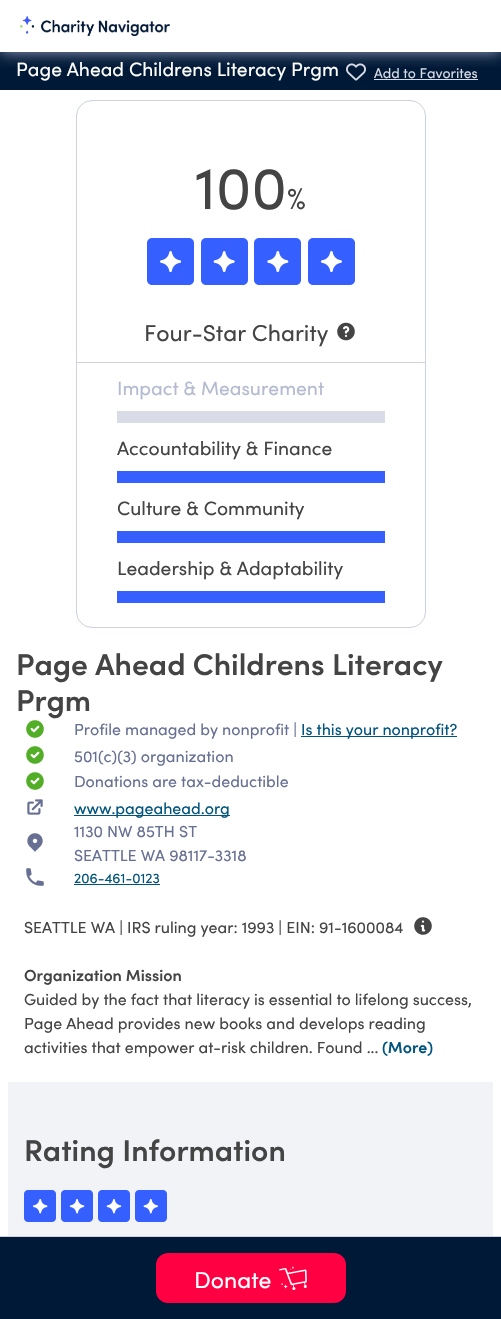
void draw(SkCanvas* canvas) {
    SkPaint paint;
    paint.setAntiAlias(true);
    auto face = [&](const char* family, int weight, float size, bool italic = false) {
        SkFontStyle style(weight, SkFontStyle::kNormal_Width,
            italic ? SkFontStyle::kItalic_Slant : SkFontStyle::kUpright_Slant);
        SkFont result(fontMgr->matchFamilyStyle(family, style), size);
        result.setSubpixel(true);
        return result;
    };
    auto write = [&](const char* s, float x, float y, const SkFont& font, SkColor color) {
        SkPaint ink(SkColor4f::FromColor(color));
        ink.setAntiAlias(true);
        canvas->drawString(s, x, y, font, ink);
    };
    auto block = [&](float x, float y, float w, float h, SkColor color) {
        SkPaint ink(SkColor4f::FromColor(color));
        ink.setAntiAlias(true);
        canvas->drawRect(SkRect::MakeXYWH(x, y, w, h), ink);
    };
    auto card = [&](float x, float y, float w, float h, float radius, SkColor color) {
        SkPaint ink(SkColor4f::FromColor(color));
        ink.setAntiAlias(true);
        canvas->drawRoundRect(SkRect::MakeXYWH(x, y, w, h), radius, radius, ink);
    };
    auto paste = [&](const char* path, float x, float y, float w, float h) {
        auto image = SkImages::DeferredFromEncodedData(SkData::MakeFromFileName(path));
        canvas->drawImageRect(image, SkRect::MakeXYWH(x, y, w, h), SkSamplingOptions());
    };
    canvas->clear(SK_ColorWHITE);
    block(0, 52, 501, 38, SkColorSetRGB(0, 25, 54));
    paste("pic2.png", 346, 63, 20, 18);
    canvas->save();
    canvas->clipRect(SkRect::MakeXYWH(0, 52, 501, 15));
    paint.setColor(SkColorSetRGB(155, 163, 192));
    paint.setMaskFilter(SkMaskFilter::MakeBlur(kNormal_SkBlurStyle, 7.5f));
    canvas->drawRect(SkRect::MakeXYWH(0, 0, 501, 52), paint);
    paint.setMaskFilter(nullptr);
    canvas->restore();
    paste("pic1.png", 20, 16, 150, 20);
    auto kFont1 = face("Sofia", 400, 19.25f);
    write("Page Ahead Childrens Literacy Prgm", 16, 76, kFont1, SK_ColorWHITE);
    auto kFont2 = face("Sofia", 400, 14);
    write("Add to Favorites", 374, 78, kFont2, SkColorSetRGB(217, 220, 231));
    block(374, 79, 104, 1, SkColorSetRGB(217, 220, 231));
    paint.setStyle(SkPaint::kStroke_Style);
    paint.setStrokeWidth(1);
    paint.setColor(SkColorSetRGB(205, 209, 224));
    canvas->drawRoundRect(SkRect::MakeXYWH(76.5f, 100.5f, 349, 527), 15.5f, 15.5f, paint);
    auto kFont3 = face("Sofia", 400, 60);
    write("100", 195, 209, kFont3, SkColorSetRGB(68, 68, 69));
    auto kFont4 = face("Sofia", 400, 30);
    write("%", 287, 209, kFont4, SkColorSetRGB(68, 68, 69));
    paste("pic3.png", 147, 238, 208, 47);
    auto kFont5 = face("Sofia", 400, 23);
    write("Four-Star Charity", 144, 341, kFont5, SkColorSetRGB(68, 68, 69));
    paste("pic4.png", 337, 322, 18, 19);
    block(77, 362, 348, 1, SkColorSetRGB(205, 209, 224));
    write("Impact & Measurement", 117, 395, kFont1, SkColorSetRGB(180, 186, 208));
    block(117, 411, 268, 12, SkColorSetRGB(217, 220, 231));
    write("Accountability & Finance", 117, 455, kFont1, SkColorSetRGB(68, 68, 69));
    block(117, 471, 268, 12, SkColorSetRGB(53, 95, 254));
    write("Culture & Community", 117, 515, kFont1, SkColorSetRGB(68, 68, 69));
    block(117, 531, 268, 12, SkColorSetRGB(53, 95, 254));
    write("Leadership & Adaptability", 117, 575, kFont1, SkColorSetRGB(68, 68, 69));
    block(117, 591, 268, 12, SkColorSetRGB(53, 95, 254));
    auto kFont6 = face("Sofia", 600, 30);
    write("Page Ahead Childrens Literacy", 16, 675, kFont6, SkColorSetRGB(68, 68, 69));
    write("Prgm", 16, 711, kFont6, SkColorSetRGB(68, 68, 69));
    paste("pic5.png", 26, 720, 18, 18);
    auto kFont7 = face("Sofia", 400, 16);
    write("Profile managed by nonprofit |", 74, 735, kFont7, SkColorSetRGB(103, 112, 147));
    block(301, 736, 156, 1, SkColorSetRGB(0, 84, 126));
    write("Is this your nonprofit?", 301, 735, kFont7, SkColorSetRGB(0, 84, 126));
    paste("pic5.png", 26, 746, 18, 18);
    write("501(c)(3) organization", 74, 762, kFont7, SkColorSetRGB(103, 112, 147));
    paste("pic5.png", 26, 772, 18, 18);
    write("Donations are tax-deductible", 74, 787, kFont7, SkColorSetRGB(103, 112, 147));
    paste("pic6.png", 27, 799, 16, 16);
    block(74, 815, 156, 1, SkColorSetRGB(0, 84, 126));
    write("www.pageahead.org", 74, 814, kFont7, SkColorSetRGB(0, 84, 126));
    paste("pic7.png", 27, 833, 16, 19);
    write("1130 NW 85TH ST", 74, 837, kFont7, SkColorSetRGB(103, 112, 147));
    write("SEATTLE WA 98117-3318", 74, 861, kFont7, SkColorSetRGB(103, 112, 147));
    paste("pic8.png", 26, 868, 18, 18);
    write("206-461-0123", 74, 883, kFont2, SkColorSetRGB(0, 84, 126));
    block(74, 884, 86, 1, SkColorSetRGB(0, 84, 126));
    write("SEATTLE WA | IRS ruling year: 1993 | EIN: 91-1600084", 24, 933, kFont7, SkColorSetRGB(68, 68, 69));
    paste("pic9.png", 414, 917, 18, 18);
    auto kFont8 = face("Sofia", 600, 16);
    write("Organization Mission", 24, 981, kFont8, SkColorSetRGB(68, 68, 69));
    write("Guided by the fact that literacy is essential to lifelong success,", 24, 1005, kFont7, SkColorSetRGB(68, 68, 69));
    write("Page Ahead provides new books and develops reading", 24, 1029, kFont7, SkColorSetRGB(68, 68, 69));
    write("activities that empower at-risk children. Found ...", 24, 1053, kFont7, SkColorSetRGB(68, 68, 69));
    write("(More)", 382, 1053, kFont8, SkColorSetRGB(0, 84, 126));
    block(8, 1082, 485, 154, SkColorSetRGB(242, 243, 247));
    write("Rating Information", 24, 1161, kFont6, SkColorSetRGB(68, 68, 69));
    paste("pic10.png", 24, 1190, 143, 32);
    block(0, 1237, 501, 82, SkColorSetRGB(0, 25, 54));
    block(0, 1236, 501, 1, SkColorSetRGB(205, 209, 224));
    card(156, 1253, 190, 50, 12, SkColorSetRGB(255, 0, 67));
    write("Donate", 194, 1288, kFont5, SK_ColorWHITE);
    paste("pic11.png", 279, 1266, 28, 24);
}
